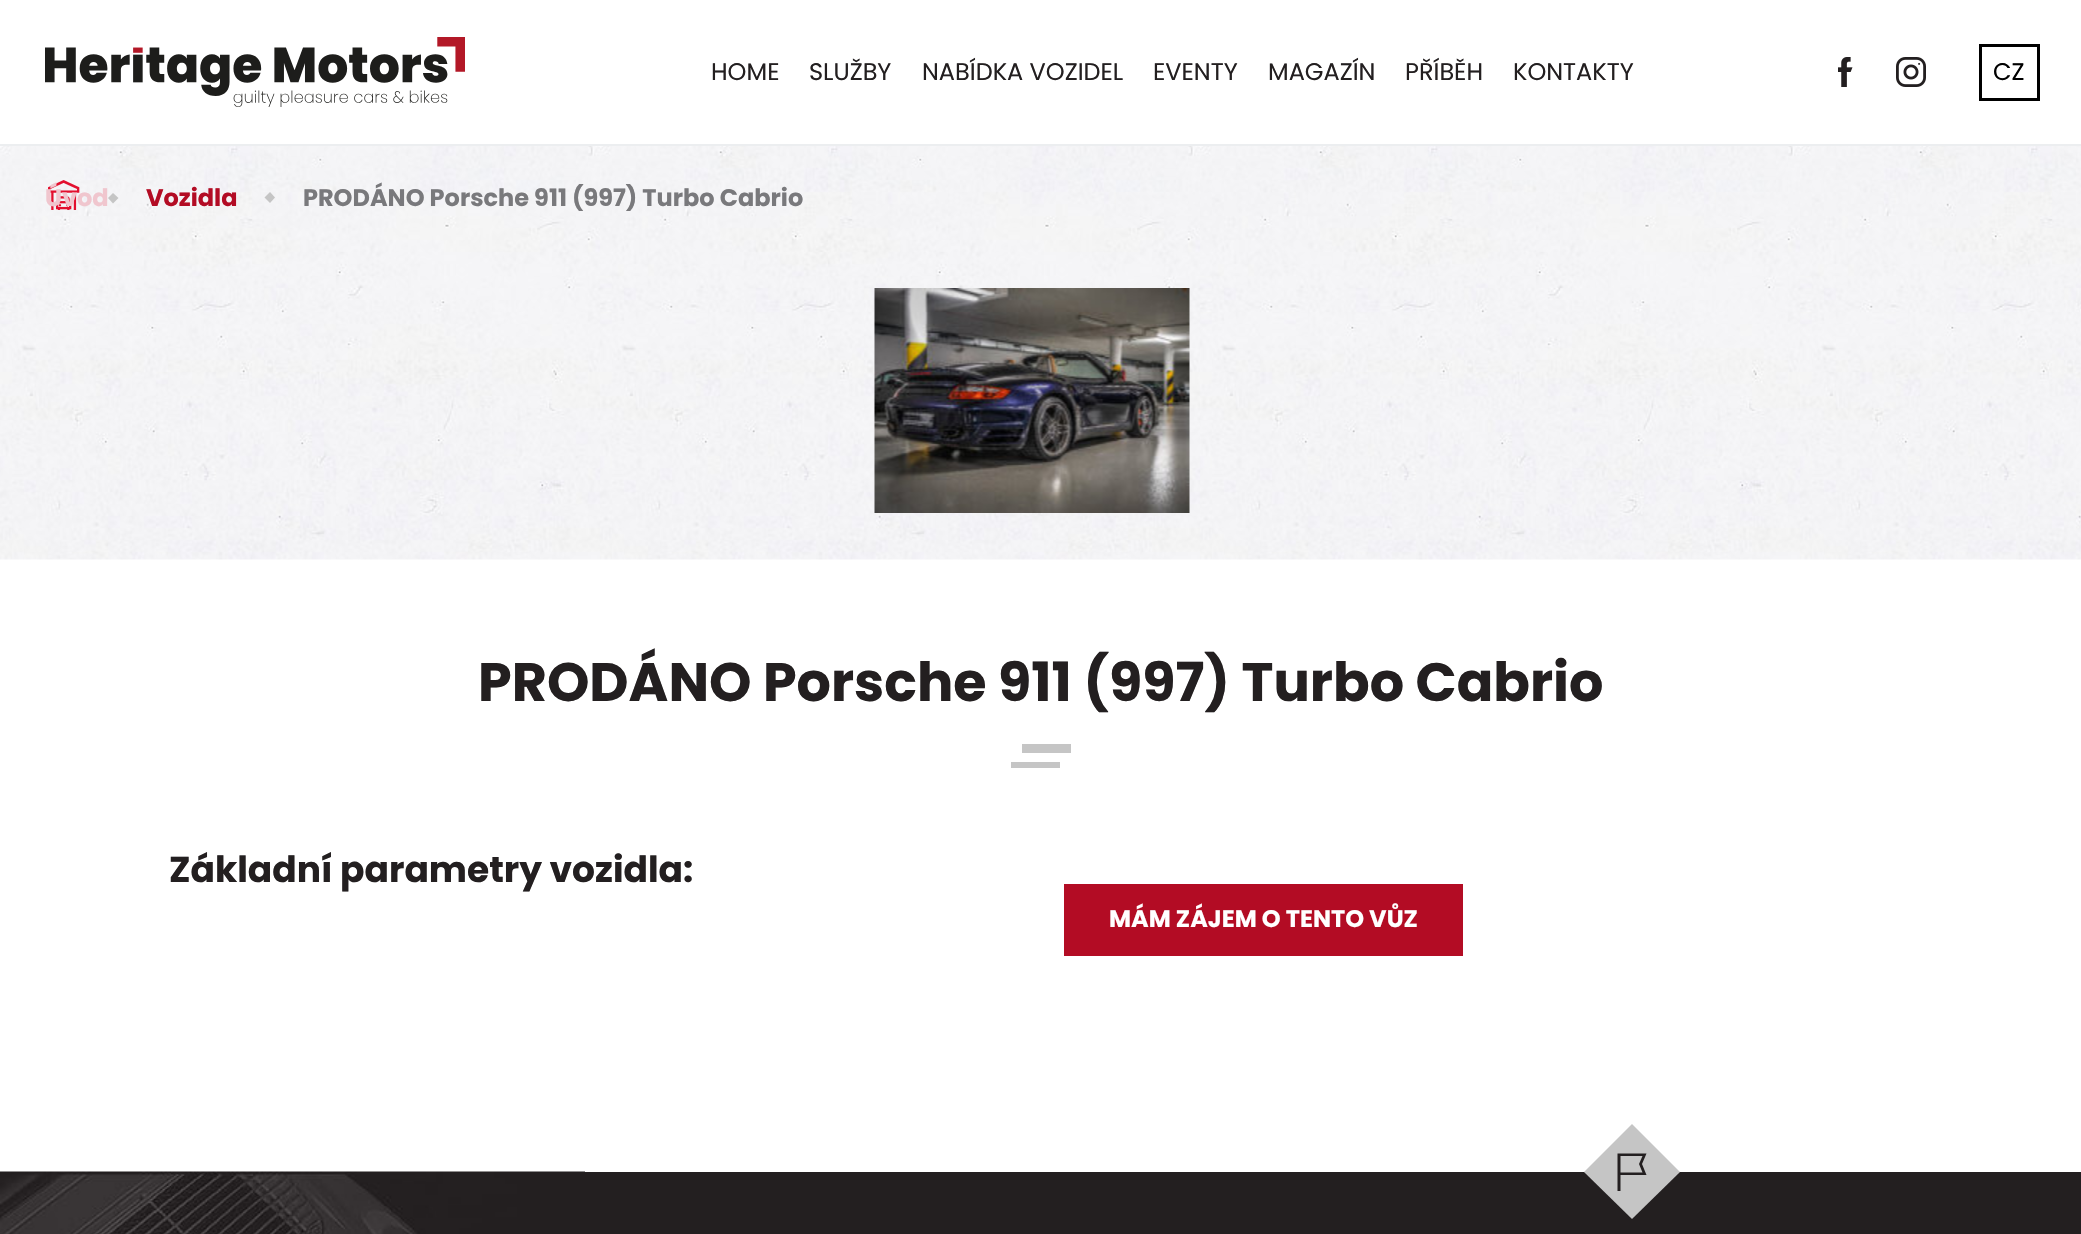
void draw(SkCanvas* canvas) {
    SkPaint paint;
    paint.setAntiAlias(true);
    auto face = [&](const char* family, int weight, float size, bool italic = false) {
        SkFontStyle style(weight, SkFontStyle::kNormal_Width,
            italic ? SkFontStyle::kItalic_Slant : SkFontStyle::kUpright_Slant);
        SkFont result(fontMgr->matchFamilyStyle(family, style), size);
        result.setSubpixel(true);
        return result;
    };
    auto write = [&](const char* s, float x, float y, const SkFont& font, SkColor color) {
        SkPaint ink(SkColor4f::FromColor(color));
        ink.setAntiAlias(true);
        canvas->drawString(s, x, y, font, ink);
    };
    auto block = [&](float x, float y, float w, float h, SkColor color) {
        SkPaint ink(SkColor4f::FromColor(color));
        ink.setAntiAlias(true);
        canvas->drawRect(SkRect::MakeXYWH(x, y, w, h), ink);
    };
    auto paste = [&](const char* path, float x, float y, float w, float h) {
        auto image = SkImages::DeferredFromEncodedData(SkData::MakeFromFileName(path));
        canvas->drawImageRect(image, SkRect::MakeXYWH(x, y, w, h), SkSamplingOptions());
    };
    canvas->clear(SK_ColorWHITE);
    block(0, 144, 2081, 2, SkColorSetRGB(236, 238, 240));
    paste("pic1.png", 45, 37, 420, 70);
    auto kFont1 = face("Poppins", 400, 24);
    write("HOME", 711, 80, kFont1, SkColorSetRGB(35, 31, 32));
    write("SLUŽBY", 809, 80, kFont1, SkColorSetRGB(35, 31, 32));
    write("NABÍDKA VOZIDEL", 922, 80, kFont1, SkColorSetRGB(35, 31, 32));
    write("EVENTY", 1153, 80, kFont1, SkColorSetRGB(35, 31, 32));
    write("MAGAZÍN", 1268, 80, kFont1, SkColorSetRGB(35, 31, 32));
    write("PŘÍBĚH", 1405, 80, kFont1, SkColorSetRGB(35, 31, 32));
    write("KONTAKTY", 1513, 80, kFont1, SkColorSetRGB(35, 31, 32));
    paste("pic2.png", 1838, 57, 15, 30);
    paste("pic3.png", 1896, 57, 30, 30);
    paint.setStyle(SkPaint::kStroke_Style);
    paint.setStrokeWidth(3);
    paint.setColor(SK_ColorBLACK);
    canvas->drawRect(SkRect::MakeXYWH(1980.5f, 45.5f, 58, 54), paint);
    write("CZ", 1993, 80, kFont1, SK_ColorBLACK);
    paste("pic4.png", 0, 146, 2081, 414);
    paste("pic5.png", 874, 288, 316, 225);
    paste("pic6.png", 48, 180, 32, 30);
    auto kFont2 = face("Poppins", 700, 24);
    write("Úvod", 45, 206, kFont2, SkColorSetRGB(240, 198, 206));
    paint.setStyle(SkPaint::kFill_Style);
    paint.setColor(SkColorSetRGB(197, 197, 197));
    canvas->drawPath(SkPathBuilder().moveTo(113, 193).lineTo(118.5f, 198).lineTo(113, 203.5f).lineTo(108, 198).close().detach(), paint);
    write("Vozidla", 146, 206, kFont2, SkColorSetRGB(179, 12, 36));
    canvas->drawPath(SkPathBuilder().moveTo(270, 192).lineTo(275, 197.5f).lineTo(270, 203).lineTo(264.5f, 197.5f).close().detach(), paint);
    write("PRODÁNO Porsche 911 (997) Turbo Cabrio", 303, 206, kFont2, SkColorSetRGB(121, 121, 124));
    auto kFont3 = face("Poppins", 700, 54);
    write("PRODÁNO Porsche 911 (997) Turbo Cabrio", 478, 701, kFont3, SkColorSetRGB(35, 31, 32));
    canvas->drawPath(SkPathBuilder(SkPathFillType::kEvenOdd).moveTo(1022, 744).lineTo(1071, 744).lineTo(1071, 753).lineTo(1022, 753).close().moveTo(1011, 762).lineTo(1060, 762).lineTo(1060, 768).lineTo(1011, 768).close().detach(), paint);
    auto kFont4 = face("Poppins", 700, 36);
    write("Základní parametry vozidla:", 169, 882, kFont4, SkColorSetRGB(35, 31, 32));
    block(1064, 884, 399, 72, SkColorSetRGB(179, 12, 36));
    write("MÁM ZÁJEM O TENTO VŮZ", 1109, 927, kFont2, SK_ColorWHITE);
    block(585, 1172, 1496, 62, SkColorSetRGB(35, 31, 32));
    canvas->drawPath(SkPathBuilder().moveTo(1632, 1124).lineTo(1680, 1172).lineTo(1632, 1219).lineTo(1584, 1172).close().detach(), paint);
    paint.setColor(SkColorSetRGB(35, 31, 32));
    canvas->drawPath(SkPathBuilder().moveTo(1646.5f, 1153.5f).lineTo(1642, 1164).lineTo(1646.5f, 1175).lineTo(1620.5f, 1175).lineTo(1620.5f, 1191).lineTo(1617.5f, 1191).lineTo(1617.5f, 1153.5f).close().moveTo(1642.5f, 1172.5f).lineTo(1639, 1164).lineTo(1642.5f, 1156).lineTo(1620.5f, 1156).lineTo(1620.5f, 1172.5f).close().detach(), paint);
    paste("pic7.png", 0, 1171, 585, 63);
}
